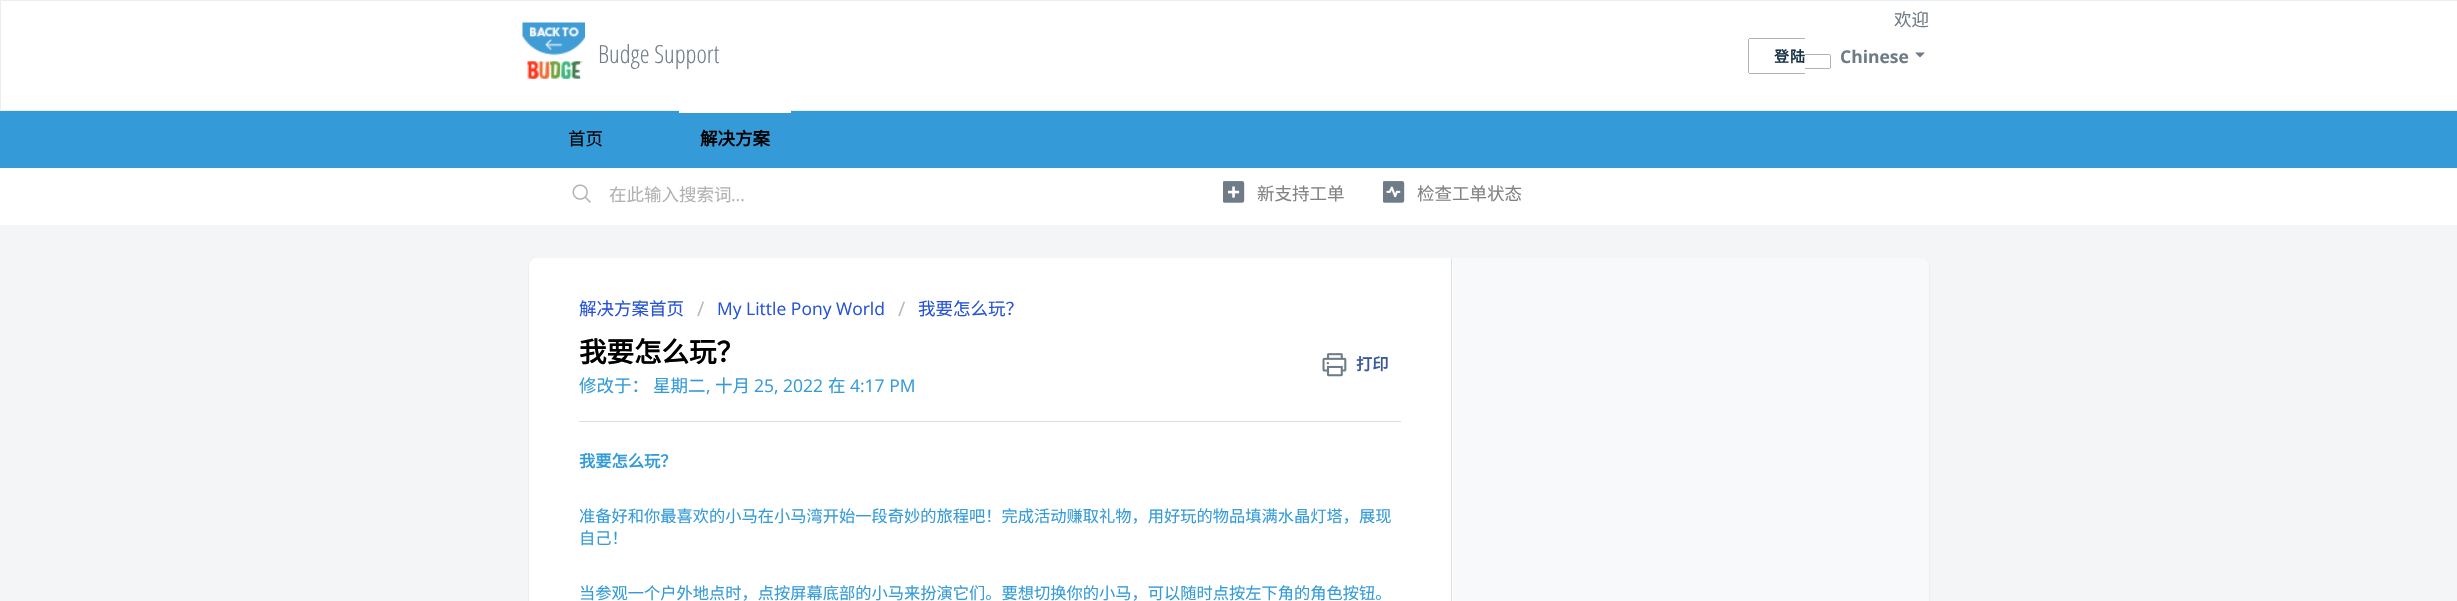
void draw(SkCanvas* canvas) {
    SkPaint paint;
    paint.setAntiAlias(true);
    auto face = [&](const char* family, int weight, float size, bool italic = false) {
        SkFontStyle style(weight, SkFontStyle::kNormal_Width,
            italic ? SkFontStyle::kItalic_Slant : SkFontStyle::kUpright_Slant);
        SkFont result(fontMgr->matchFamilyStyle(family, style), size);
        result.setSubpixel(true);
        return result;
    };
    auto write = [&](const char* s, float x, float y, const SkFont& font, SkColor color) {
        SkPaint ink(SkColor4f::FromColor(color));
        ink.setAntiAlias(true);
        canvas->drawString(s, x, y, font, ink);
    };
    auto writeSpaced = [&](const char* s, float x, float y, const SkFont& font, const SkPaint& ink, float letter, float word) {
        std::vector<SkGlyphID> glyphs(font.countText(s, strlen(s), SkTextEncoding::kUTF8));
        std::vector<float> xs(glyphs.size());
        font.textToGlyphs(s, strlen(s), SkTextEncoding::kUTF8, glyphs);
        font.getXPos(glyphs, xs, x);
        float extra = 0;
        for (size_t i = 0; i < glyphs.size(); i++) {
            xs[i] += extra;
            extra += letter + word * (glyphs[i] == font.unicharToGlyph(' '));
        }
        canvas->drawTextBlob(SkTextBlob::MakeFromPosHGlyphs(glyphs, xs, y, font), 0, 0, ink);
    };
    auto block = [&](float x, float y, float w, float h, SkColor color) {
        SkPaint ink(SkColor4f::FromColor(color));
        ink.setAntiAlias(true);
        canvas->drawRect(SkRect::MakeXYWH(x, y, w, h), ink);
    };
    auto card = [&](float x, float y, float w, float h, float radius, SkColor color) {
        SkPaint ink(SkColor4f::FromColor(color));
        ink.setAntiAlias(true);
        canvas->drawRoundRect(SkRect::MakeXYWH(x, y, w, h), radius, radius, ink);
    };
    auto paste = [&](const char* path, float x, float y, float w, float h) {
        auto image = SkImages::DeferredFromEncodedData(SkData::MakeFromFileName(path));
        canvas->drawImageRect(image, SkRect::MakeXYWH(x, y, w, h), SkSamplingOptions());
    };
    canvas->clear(SkColorSetRGB(243, 245, 247));
    paint.setColor(SK_ColorWHITE);
    canvas->drawRect(SkRect::MakeXYWH(0.5f, 0.5f, 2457, 110), paint);
    paint.setStyle(SkPaint::kStroke_Style);
    paint.setStrokeWidth(1);
    paint.setColor(SkColorSetRGB(235, 238, 240));
    canvas->drawRect(SkRect::MakeXYWH(0.5f, 0.5f, 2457, 110), paint);
    paste("pic1.png", 522, 22, 63, 57);
    auto kFont1 = face("Open Sans Condensed", 300, 25);
    write("Budge Support", 598, 63, kFont1, SkColorSetRGB(111, 124, 135));
    auto kFont2 = face("Noto Sans CJK SC", 400, 17.5f);
    write("欢迎", 1894, 26, kFont2, SkColorSetRGB(111, 124, 135));
    auto kFont3 = face("Noto Sans CJK SC", 700, 15);
    paint.setStyle(SkPaint::kFill_Style);
    paint.setColor(SkColorSetRGB(24, 50, 71));
    writeSpaced("登陆", 1774, 62, kFont3, paint, 1, 0);
    block(1749, 38, 56, 1, SkColorSetRGB(179, 179, 179));
    block(1749, 73, 56, 1, SkColorSetRGB(179, 179, 179));
    block(1748, 39, 1, 34, SkColorSetRGB(179, 179, 179));
    block(1805, 54, 25, 1, SkColorSetRGB(179, 179, 179));
    block(1830, 55, 1, 13, SkColorSetRGB(179, 179, 179));
    block(1805, 68, 25, 1, SkColorSetRGB(179, 179, 179));
    auto kFont4 = face("Open Sans", 700, 17.5f);
    write("Chinese", 1840, 63, kFont4, SkColorSetRGB(111, 124, 135));
    paint.setColor(SkColorSetRGB(111, 124, 135));
    canvas->drawPath(SkPathBuilder().moveTo(1915, 52.5f).lineTo(1925, 52.5f).lineTo(1920, 57.5f).close().detach(), paint);
    block(0, 111, 2457, 57, SkColorSetRGB(52, 155, 216));
    write("首页", 568, 145, kFont2, SK_ColorBLACK);
    block(679, 110, 112, 3, SK_ColorWHITE);
    auto kFont5 = face("Noto Sans CJK SC", 700, 17.5f);
    write("解决方案", 700, 145, kFont5, SK_ColorBLACK);
    block(0, 168, 2457, 57, SK_ColorWHITE);
    paste("pic2.png", 572, 184, 19, 19);
    write("在此输入搜索词", 609, 201, kFont2, SkColorSetRGB(178, 178, 178));
    auto kFont6 = face("Open Sans", 400, 17.5f);
    write("...", 731, 201, kFont6, SkColorSetRGB(178, 178, 178));
    paste("pic3.png", 1223, 181, 22, 22);
    write("新支持工单", 1257, 200, kFont2, SkColorSetRGB(130, 130, 130));
    paste("pic4.png", 1383, 181, 22, 22);
    write("检查工单状态", 1417, 200, kFont2, SkColorSetRGB(130, 130, 130));
    paint.setColor(SkColorSetARGB(38, 63, 63, 68));
    paint.setMaskFilter(SkMaskFilter::MakeBlur(kNormal_SkBlurStyle, 1));
    canvas->drawRoundRect(SkRect::MakeXYWH(529, 259, 1400, 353), 8, 8, paint);
    paint.setMaskFilter(nullptr);
    card(529, 258, 1400, 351, 8, SkColorSetRGB(248, 249, 250));
    paint.setColor(SkColorSetRGB(248, 249, 250));
    canvas->drawPath(SkPathBuilder().moveTo(1453, 258).lineTo(1921, 258).cubicTo(1925.5f, 258, 1929, 261.5f, 1929, 266).lineTo(1929, 275).cubicTo(1929, 279.5f, 1925.5f, 283, 1921, 283).lineTo(1453, 283).close().detach(), paint);
    paint.setColor(SK_ColorWHITE);
    canvas->drawPath(SkPathBuilder().moveTo(537, 258).lineTo(1453, 258).lineTo(1453, 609).lineTo(537, 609).cubicTo(532.5f, 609, 529, 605.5f, 529, 601).lineTo(529, 266).cubicTo(529, 261.5f, 532.5f, 258, 537, 258).close().detach(), paint);
    block(1451, 258, 1, 343, SkColorSetRGB(218, 223, 227));
    write("解决方案首页", 579, 315, kFont2, SkColorSetRGB(39, 83, 215));
    auto kFont7 = face("Open Sans", 400, 20);
    write("/", 697, 316, kFont7, SkColorSetRGB(187, 187, 187));
    write("My Little Pony World", 717, 315, kFont6, SkColorSetRGB(39, 83, 215));
    write("/", 898, 316, kFont7, SkColorSetRGB(187, 187, 187));
    write("我要怎么玩？", 918, 315, kFont2, SkColorSetRGB(39, 83, 215));
    auto kFont8 = face("Noto Sans CJK SC", 700, 27.5f);
    write("我要怎么玩？", 579, 362, kFont8, SK_ColorBLACK);
    paste("pic5.png", 1322, 353, 25, 24);
    auto kFont9 = face("Noto Sans CJK SC", 700, 16.25f);
    write("打印", 1356, 370, kFont9, SkColorSetRGB(59, 89, 152));
    write("修改于：", 579, 392, kFont2, SkColorSetRGB(52, 155, 216));
    write("星期二", 653, 392, kFont2, SkColorSetRGB(52, 155, 216));
    write(",", 706, 392, kFont6, SkColorSetRGB(52, 155, 216));
    write("十月", 715, 392, kFont2, SkColorSetRGB(52, 155, 216));
    write("25, 2022", 754, 392, kFont6, SkColorSetRGB(52, 155, 216));
    write("在", 828, 392, kFont2, SkColorSetRGB(52, 155, 216));
    write("4:17 PM", 850, 392, kFont6, SkColorSetRGB(52, 155, 216));
    block(579, 421, 822, 1, SkColorSetRGB(220, 220, 220));
    write("我要怎么玩？", 579, 467, kFont9, SkColorSetRGB(52, 155, 216));
    auto kFont10 = face("Noto Sans CJK SC", 400, 16.25f);
    write("准备好和你最喜欢的小马在小马湾开始一段奇妙的旅程吧！完成活动赚取礼物，用好玩的物品填满水晶灯塔，展现", 579, 522, kFont10, SkColorSetRGB(52, 155, 216));
    write("自己！", 579, 544, kFont10, SkColorSetRGB(52, 155, 216));
    write("当参观一个户外地点时，点按屏幕底部的小马来扮演它们。要想切换你的小马，可以随时点按左下角的角色按钮。", 579, 599, kFont10, SkColorSetRGB(52, 155, 216));
}
